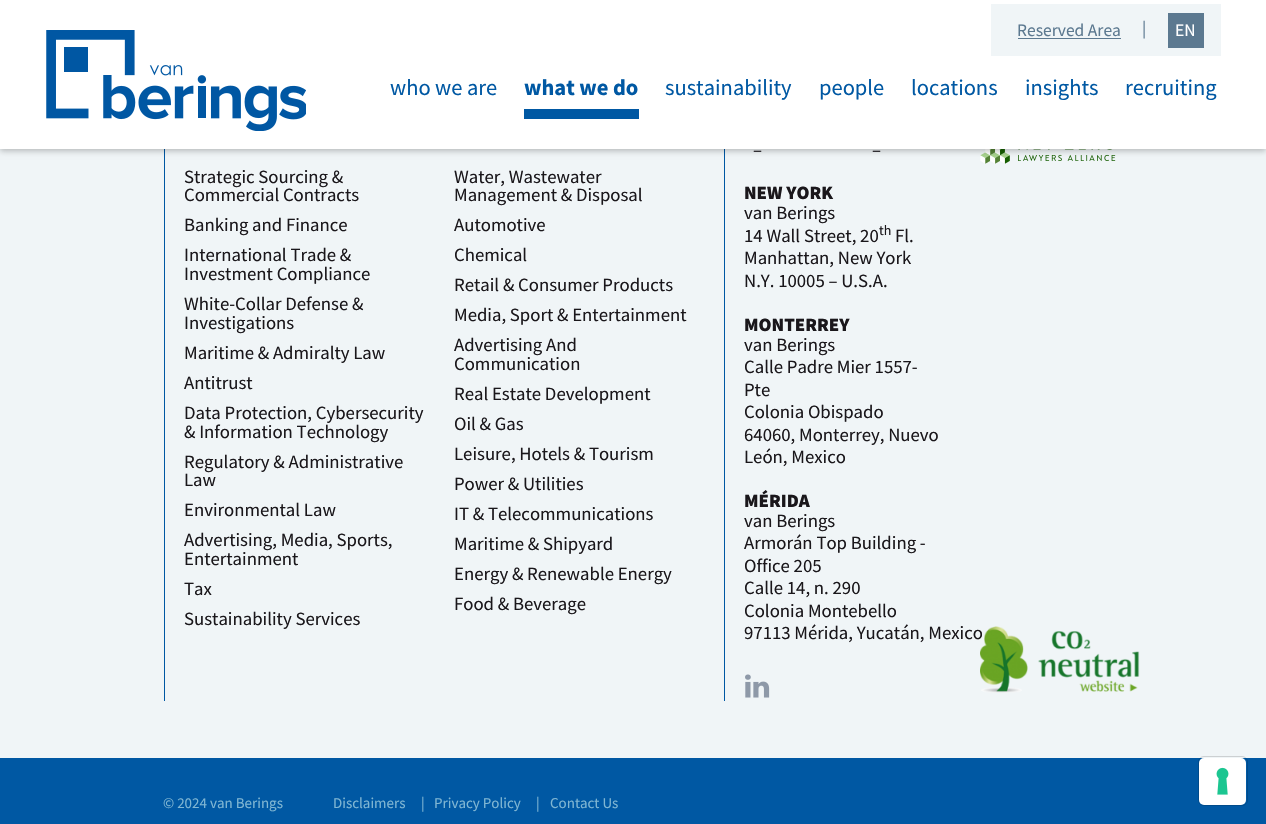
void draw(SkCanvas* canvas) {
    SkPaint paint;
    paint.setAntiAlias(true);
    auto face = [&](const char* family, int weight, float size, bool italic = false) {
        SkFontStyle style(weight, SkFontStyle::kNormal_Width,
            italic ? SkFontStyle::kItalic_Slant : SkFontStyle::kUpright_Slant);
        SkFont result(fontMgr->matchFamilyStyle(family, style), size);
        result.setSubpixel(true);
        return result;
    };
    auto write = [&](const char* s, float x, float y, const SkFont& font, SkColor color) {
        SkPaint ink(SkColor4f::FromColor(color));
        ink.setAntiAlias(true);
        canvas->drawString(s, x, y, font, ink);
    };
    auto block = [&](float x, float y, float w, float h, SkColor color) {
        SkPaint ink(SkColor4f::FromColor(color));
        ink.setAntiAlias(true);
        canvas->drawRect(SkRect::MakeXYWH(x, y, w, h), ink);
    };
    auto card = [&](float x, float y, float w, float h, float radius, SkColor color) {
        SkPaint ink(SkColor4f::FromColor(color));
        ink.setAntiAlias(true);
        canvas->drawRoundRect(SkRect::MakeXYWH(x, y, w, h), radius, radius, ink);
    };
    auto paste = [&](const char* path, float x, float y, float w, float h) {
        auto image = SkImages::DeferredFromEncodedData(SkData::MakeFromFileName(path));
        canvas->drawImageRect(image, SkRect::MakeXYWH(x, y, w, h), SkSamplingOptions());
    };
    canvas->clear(SkColorSetRGB(240, 245, 247));
    block(0, 0, 1266, 149, SK_ColorWHITE);
    block(164, 149, 1, 552, SkColorSetRGB(0, 88, 163));
    block(724, 149, 1, 552, SkColorSetRGB(0, 88, 163));
    paste("pic3.png", 980, 149, 136, 15);
    canvas->save();
    canvas->clipPath(SkPathBuilder(SkPathFillType::kEvenOdd).moveTo(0, 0).lineTo(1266, 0).lineTo(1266, 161).lineTo(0, 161).close().moveTo(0, 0).lineTo(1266, 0).lineTo(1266, 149).lineTo(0, 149).close().detach(), true);
    paint.setColor(SkColorSetARGB(64, 0, 0, 0));
    paint.setMaskFilter(SkMaskFilter::MakeBlur(kNormal_SkBlurStyle, 3));
    canvas->drawRect(SkRect::MakeXYWH(0, 3, 1266, 148), paint);
    paint.setMaskFilter(nullptr);
    canvas->restore();
    paste("pic1.png", 46, 30, 260, 101);
    block(991, 4, 230, 52, SkColorSetRGB(240, 245, 247));
    auto kFont1 = face("Source Sans Pro", 400, 17.5f);
    write("Reserved Area", 1017, 36, kFont1, SkColorSetRGB(92, 121, 144));
    block(1018, 38, 103, 1, SkColorSetRGB(92, 121, 144));
    write("|", 1142, 34, kFont1, SkColorSetRGB(92, 121, 144));
    block(1168, 13, 36, 35, SkColorSetRGB(92, 121, 144));
    write("EN", 1175, 36, kFont1, SK_ColorWHITE);
    auto kFont2 = face("Source Sans Pro", 400, 22.5f);
    write("who we are", 390, 95, kFont2, SkColorSetRGB(0, 88, 163));
    block(524, 109, 115, 10, SkColorSetRGB(0, 88, 163));
    auto kFont3 = face("Source Sans Pro", 700, 22.5f);
    write("what we do", 524, 95, kFont3, SkColorSetRGB(0, 88, 163));
    write("sustainability", 665, 95, kFont2, SkColorSetRGB(0, 88, 163));
    write("people", 819, 95, kFont2, SkColorSetRGB(0, 88, 163));
    write("locations", 911, 95, kFont2, SkColorSetRGB(0, 88, 163));
    write("insights", 1025, 95, kFont2, SkColorSetRGB(0, 88, 163));
    write("recruiting", 1125, 95, kFont2, SkColorSetRGB(0, 88, 163));
    auto kFont4 = face("Source Sans Pro", 400, 18.75f);
    write("Strategic Sourcing &", 184, 183, kFont4, SkColorSetRGB(26, 23, 27));
    write("Commercial Contracts", 184, 201, kFont4, SkColorSetRGB(26, 23, 27));
    write("Banking and Finance", 184, 231, kFont4, SkColorSetRGB(26, 23, 27));
    write("International Trade &", 184, 261, kFont4, SkColorSetRGB(26, 23, 27));
    write("Investment Compliance", 184, 280, kFont4, SkColorSetRGB(26, 23, 27));
    write("White-Collar Defense &", 184, 310, kFont4, SkColorSetRGB(26, 23, 27));
    write("Investigations", 184, 329, kFont4, SkColorSetRGB(26, 23, 27));
    write("Maritime & Admiralty Law", 184, 359, kFont4, SkColorSetRGB(26, 23, 27));
    write("Antitrust", 184, 389, kFont4, SkColorSetRGB(26, 23, 27));
    write("Data Protection, Cybersecurity", 184, 419, kFont4, SkColorSetRGB(26, 23, 27));
    write("& Information Technology", 184, 438, kFont4, SkColorSetRGB(26, 23, 27));
    write("Regulatory & Administrative", 184, 468, kFont4, SkColorSetRGB(26, 23, 27));
    write("Law", 184, 486, kFont4, SkColorSetRGB(26, 23, 27));
    write("Environmental Law", 184, 516, kFont4, SkColorSetRGB(26, 23, 27));
    write("Advertising, Media, Sports,", 184, 546, kFont4, SkColorSetRGB(26, 23, 27));
    write("Entertainment", 184, 565, kFont4, SkColorSetRGB(26, 23, 27));
    write("Tax", 184, 595, kFont4, SkColorSetRGB(26, 23, 27));
    write("Sustainability Services", 184, 625, kFont4, SkColorSetRGB(26, 23, 27));
    write("Water, Wastewater", 454, 183, kFont4, SkColorSetRGB(26, 23, 27));
    write("Management & Disposal", 454, 201, kFont4, SkColorSetRGB(26, 23, 27));
    write("Automotive", 454, 231, kFont4, SkColorSetRGB(26, 23, 27));
    write("Chemical", 454, 261, kFont4, SkColorSetRGB(26, 23, 27));
    write("Retail & Consumer Products", 454, 291, kFont4, SkColorSetRGB(26, 23, 27));
    write("Media, Sport & Entertainment", 454, 321, kFont4, SkColorSetRGB(26, 23, 27));
    write("Advertising And", 454, 351, kFont4, SkColorSetRGB(26, 23, 27));
    write("Communication", 454, 370, kFont4, SkColorSetRGB(26, 23, 27));
    write("Real Estate Development", 454, 400, kFont4, SkColorSetRGB(26, 23, 27));
    write("Oil & Gas", 454, 430, kFont4, SkColorSetRGB(26, 23, 27));
    write("Leisure, Hotels & Tourism", 454, 460, kFont4, SkColorSetRGB(26, 23, 27));
    write("Power & Utilities", 454, 490, kFont4, SkColorSetRGB(26, 23, 27));
    write("IT & Telecommunications", 454, 520, kFont4, SkColorSetRGB(26, 23, 27));
    write("Maritime & Shipyard", 454, 550, kFont4, SkColorSetRGB(26, 23, 27));
    write("Energy & Renewable Energy", 454, 580, kFont4, SkColorSetRGB(26, 23, 27));
    write("Food & Beverage", 454, 610, kFont4, SkColorSetRGB(26, 23, 27));
    write("–", 753, 156, kFont4, SkColorSetRGB(26, 23, 27));
    write("–", 872, 156, kFont4, SkColorSetRGB(26, 23, 27));
    auto kFont5 = face("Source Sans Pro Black", 900, 18.75f);
    write("NEW YORK", 744, 199, kFont5, SkColorSetRGB(26, 23, 27));
    write("van Berings", 744, 219, kFont4, SkColorSetRGB(26, 23, 27));
    write("14 Wall Street, 20", 744, 242, kFont4, SkColorSetRGB(26, 23, 27));
    auto kFont6 = face("Source Sans Pro", 400, 14);
    write("th", 879, 235, kFont6, SkColorSetRGB(26, 23, 27));
    write("Fl.", 895, 242, kFont4, SkColorSetRGB(26, 23, 27));
    write("Manhattan, New York", 744, 264, kFont4, SkColorSetRGB(26, 23, 27));
    write("N.Y. 10005 – U.S.A.", 744, 287, kFont4, SkColorSetRGB(26, 23, 27));
    write("MONTERREY", 744, 331, kFont5, SkColorSetRGB(26, 23, 27));
    write("van Berings", 744, 351, kFont4, SkColorSetRGB(26, 23, 27));
    write("Calle Padre Mier 1557-", 744, 373, kFont4, SkColorSetRGB(26, 23, 27));
    write("Pte", 744, 396, kFont4, SkColorSetRGB(26, 23, 27));
    write("Colonia Obispado", 744, 418, kFont4, SkColorSetRGB(26, 23, 27));
    write("64060, Monterrey, Nuevo", 744, 441, kFont4, SkColorSetRGB(26, 23, 27));
    write("León, Mexico", 744, 463, kFont4, SkColorSetRGB(26, 23, 27));
    write("MÉRIDA", 744, 507, kFont5, SkColorSetRGB(26, 23, 27));
    write("van Berings", 744, 527, kFont4, SkColorSetRGB(26, 23, 27));
    write("Armorán Top Building -", 744, 549, kFont4, SkColorSetRGB(26, 23, 27));
    write("Office 205", 744, 572, kFont4, SkColorSetRGB(26, 23, 27));
    write("Calle 14, n. 290", 744, 594, kFont4, SkColorSetRGB(26, 23, 27));
    write("Colonia Montebello", 744, 617, kFont4, SkColorSetRGB(26, 23, 27));
    write("97113 Mérida, Yucatán, Mexico", 744, 639, kFont4, SkColorSetRGB(26, 23, 27));
    paste("pic2.png", 745, 674, 25, 24);
    paste("pic4.png", 980, 626, 160, 67);
    block(0, 758, 1266, 66, SkColorSetRGB(0, 88, 163));
    auto kFont7 = face("Source Sans Pro", 400, 15);
    write("© 2024 van Berings", 163, 808, kFont7, SkColorSetRGB(128, 182, 211));
    write("Disclaimers", 333, 808, kFont7, SkColorSetRGB(128, 182, 211));
    write("|", 421, 808, kFont7, SkColorSetRGB(128, 182, 211));
    write("Privacy Policy", 434, 808, kFont7, SkColorSetRGB(128, 182, 211));
    write("|", 536, 808, kFont7, SkColorSetRGB(128, 182, 211));
    write("Contact Us", 550, 808, kFont7, SkColorSetRGB(128, 182, 211));
    paint.setStyle(SkPaint::kStroke_Style);
    paint.setStrokeWidth(1);
    paint.setColor(SkColorSetARGB(38, 0, 0, 0));
    canvas->drawRoundRect(SkRect::MakeXYWH(1198.5f, 756.5f, 49, 49), 5.5f, 5.5f, paint);
    card(1199, 758, 47, 47, 5, SK_ColorWHITE);
    paste("pic5.png", 1216, 767, 13, 28);
}
